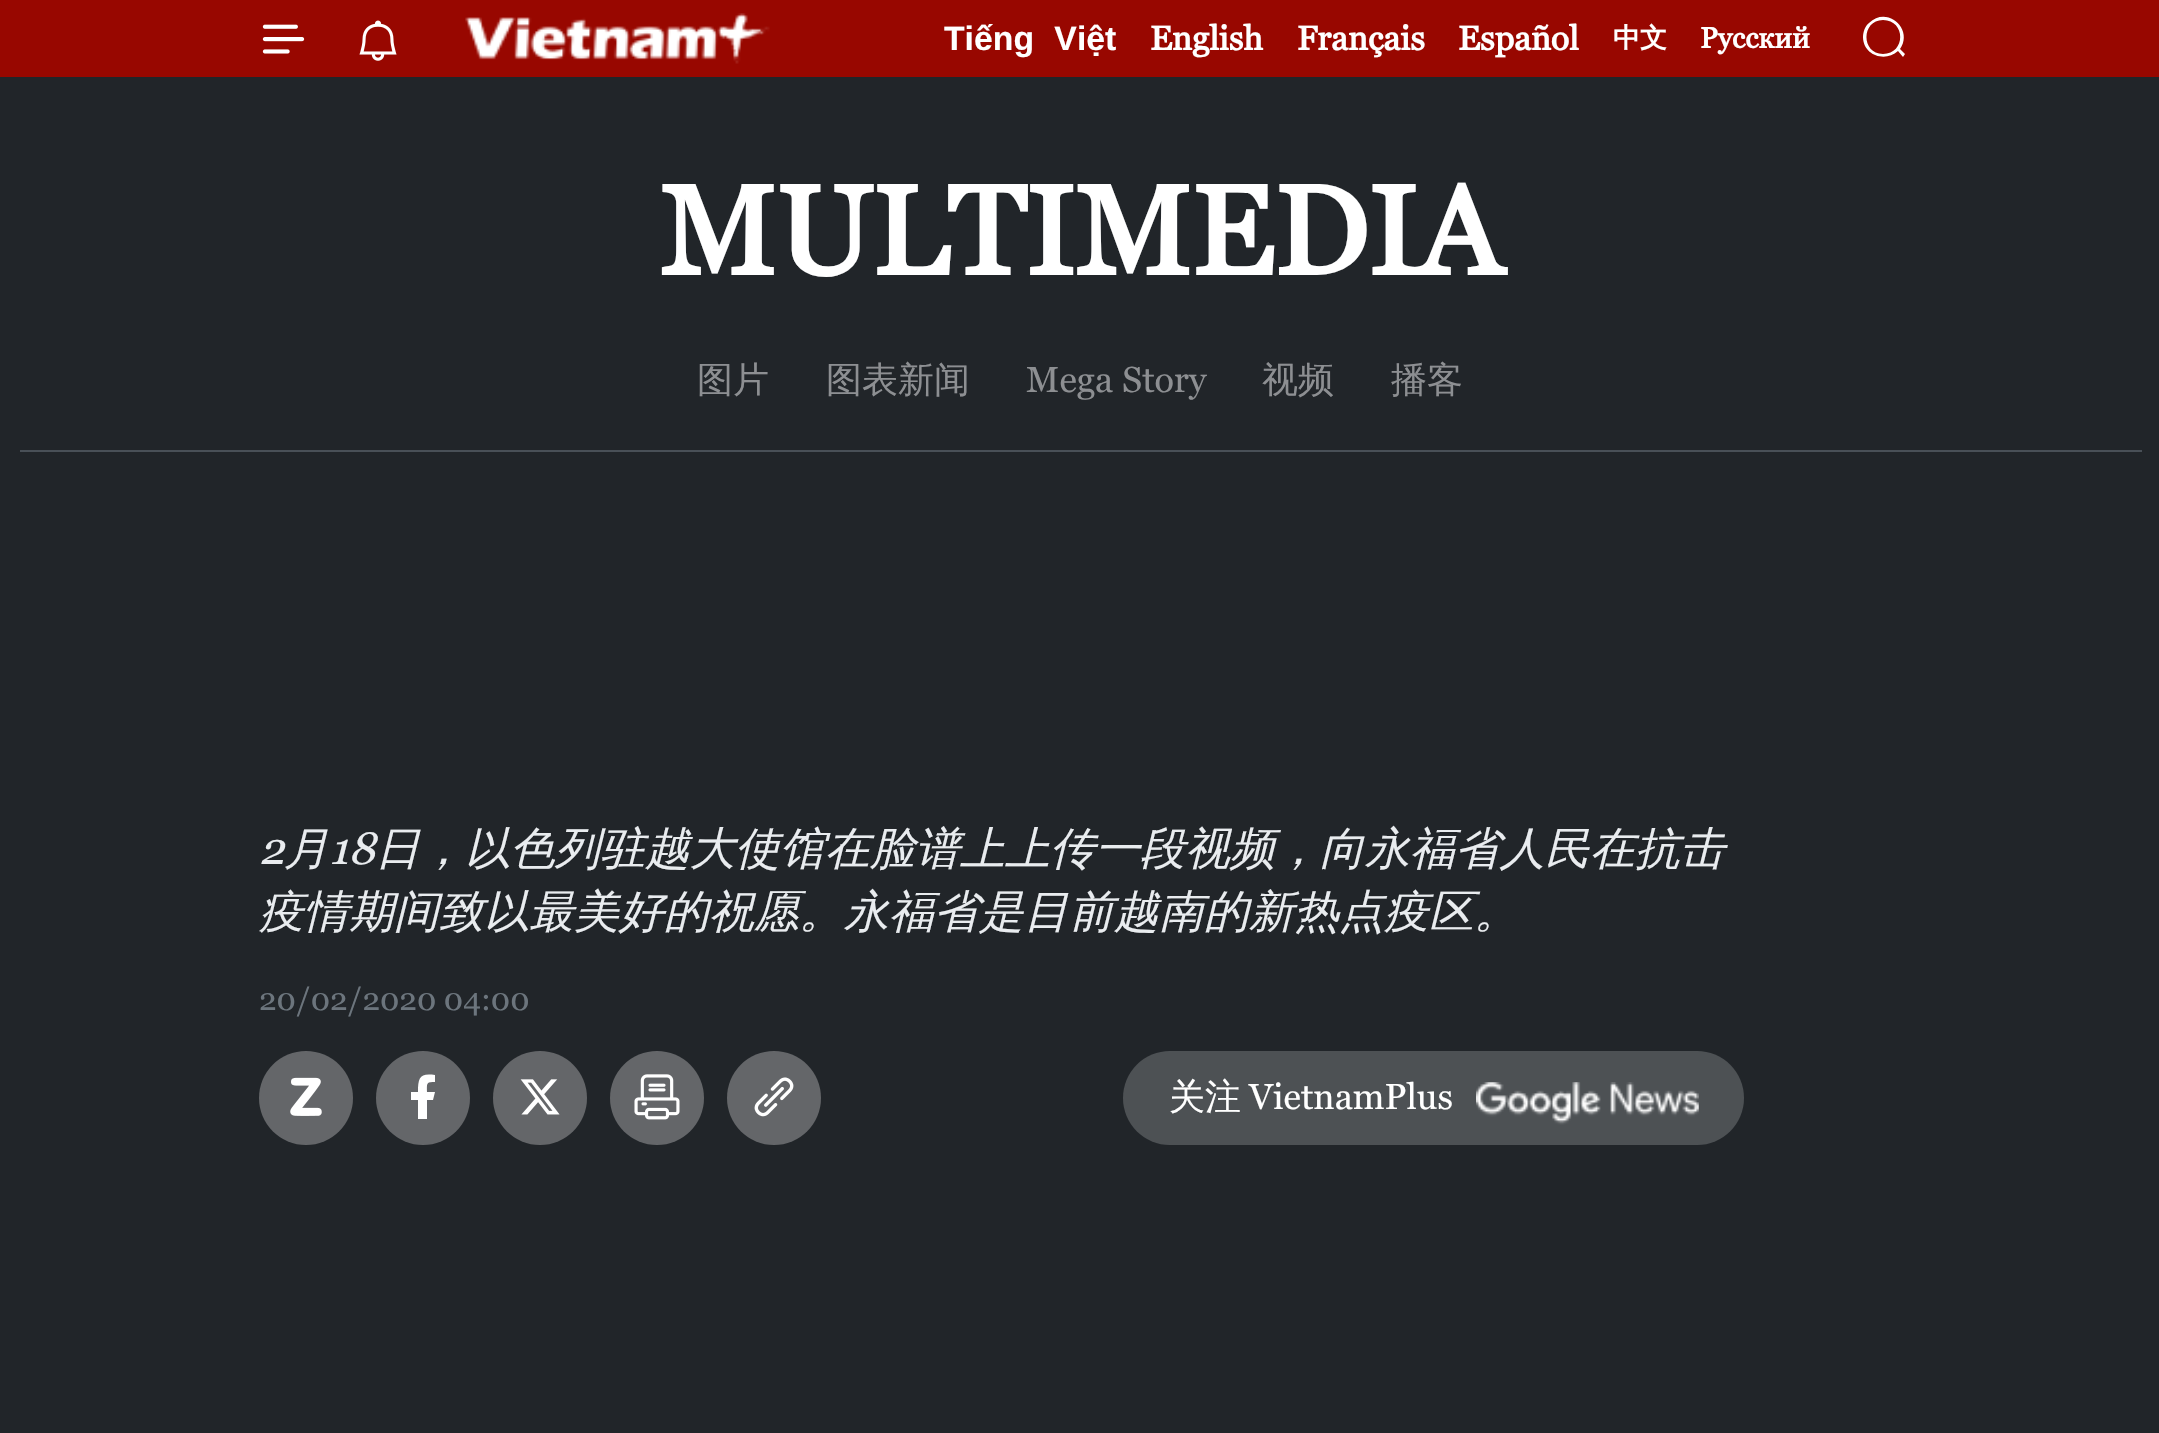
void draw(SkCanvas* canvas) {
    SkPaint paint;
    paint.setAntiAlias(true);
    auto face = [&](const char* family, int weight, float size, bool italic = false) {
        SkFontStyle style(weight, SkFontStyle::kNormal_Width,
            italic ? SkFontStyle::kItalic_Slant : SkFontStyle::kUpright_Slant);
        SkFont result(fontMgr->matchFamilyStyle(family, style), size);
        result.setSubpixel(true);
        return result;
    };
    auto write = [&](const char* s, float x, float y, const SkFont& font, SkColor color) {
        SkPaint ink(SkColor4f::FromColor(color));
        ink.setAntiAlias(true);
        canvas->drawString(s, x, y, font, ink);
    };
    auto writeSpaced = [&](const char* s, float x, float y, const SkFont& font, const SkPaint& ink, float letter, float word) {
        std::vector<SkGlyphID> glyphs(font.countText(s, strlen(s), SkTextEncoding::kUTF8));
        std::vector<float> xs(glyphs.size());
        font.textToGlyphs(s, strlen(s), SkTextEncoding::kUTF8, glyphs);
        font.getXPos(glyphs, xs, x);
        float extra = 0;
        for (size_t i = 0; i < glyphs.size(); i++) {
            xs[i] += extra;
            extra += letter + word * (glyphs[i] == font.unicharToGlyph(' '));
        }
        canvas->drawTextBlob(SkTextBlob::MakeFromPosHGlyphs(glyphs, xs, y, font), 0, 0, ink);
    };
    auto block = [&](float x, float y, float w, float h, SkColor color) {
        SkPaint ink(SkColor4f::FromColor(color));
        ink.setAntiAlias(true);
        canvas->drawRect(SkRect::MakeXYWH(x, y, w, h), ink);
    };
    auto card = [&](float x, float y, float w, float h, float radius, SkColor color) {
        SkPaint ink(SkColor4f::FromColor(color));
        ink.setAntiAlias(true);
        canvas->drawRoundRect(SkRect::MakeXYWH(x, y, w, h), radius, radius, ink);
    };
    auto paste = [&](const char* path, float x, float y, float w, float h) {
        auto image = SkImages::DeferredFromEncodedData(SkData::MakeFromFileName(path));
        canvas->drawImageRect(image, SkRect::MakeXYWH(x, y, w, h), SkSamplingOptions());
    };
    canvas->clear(SkColorSetRGB(33, 37, 41));
    block(0, 0, 2159, 77, SkColorSetRGB(152, 7, 0));
    paste("pic1.png", 262, 24, 43, 30);
    paste("pic2.png", 359, 20, 38, 41);
    paste("pic3.png", 465, 13, 305, 51);
    auto kFont1 = face("Liberation Sans", 700, 33.75f);
    paint.setColor(SK_ColorWHITE);
    writeSpaced("Tiếng Việt", 944, 50, kFont1, paint, 0, 11);
    auto kFont2 = face("Georgia", 700, 33.75f);
    write("English", 1150, 50, kFont2, SK_ColorWHITE);
    write("Français", 1297, 50, kFont2, SK_ColorWHITE);
    write("Español", 1458, 50, kFont2, SK_ColorWHITE);
    auto kFont3 = face("WenQuanYi Zen Hei", 700, 27);
    write("中文", 1613, 47, kFont3, SK_ColorWHITE);
    auto kFont4 = face("Georgia", 700, 29);
    write("Русский", 1700, 48, kFont4, SK_ColorWHITE);
    canvas->drawPath(SkPathBuilder().moveTo(1883, 20).cubicTo(1861, 20, 1861, 54, 1883, 54).cubicTo(1906, 54, 1906, 20, 1883, 20).close().moveTo(1863, 37).cubicTo(1863, 32, 1865, 26, 1869, 23).cubicTo(1887, 5, 1914, 29, 1900, 49).lineTo(1905, 54).lineTo(1903, 57).lineTo(1898, 51).cubicTo(1885, 63, 1863, 55, 1863, 37).close().detach(), paint);
    auto kFont5 = face("Georgia", 700, 126);
    write("MULTIMEDIA", 659, 275, kFont5, SK_ColorWHITE);
    auto kFont6 = face("WenQuanYi Zen Hei", 500, 36);
    write("图片", 697, 392, kFont6, SkColorSetRGB(141, 143, 146));
    write("图表新闻", 826, 392, kFont6, SkColorSetRGB(141, 143, 146));
    auto kFont7 = face("Georgia", 400, 36);
    write("Mega Story", 1026, 392, kFont7, SkColorSetRGB(141, 143, 146));
    write("视频", 1262, 392, kFont6, SkColorSetRGB(141, 143, 146));
    write("播客", 1391, 392, kFont6, SkColorSetRGB(141, 143, 146));
    block(20, 450, 2122, 2, SkColorSetRGB(73, 80, 87));
    auto kFont8 = face("Georgia", 400, 45, true);
    write("2", 259, 864, kFont8, SkColorSetRGB(233, 236, 239));
    auto kFont9 = face("WenQuanYi Zen Hei", 500, 45, true);
    write("月", 284, 864, kFont9, SkColorSetRGB(233, 236, 239));
    write("18", 329, 864, kFont8, SkColorSetRGB(233, 236, 239));
    write("日，以色列驻越大使馆在脸谱上上传一段视频，向永福省人民在抗击", 375, 864, kFont9, SkColorSetRGB(233, 236, 239));
    write("疫情期间致以最美好的祝愿。永福省是目前越南的新热点疫区。", 259, 927, kFont9, SkColorSetRGB(233, 236, 239));
    auto kFont10 = face("Georgia", 400, 31.5f);
    write("20/02/2020 04:00", 259, 1010, kFont10, SkColorSetRGB(108, 117, 125));
    paint.setColor(SkColorSetRGB(100, 102, 105));
    canvas->drawCircle(306, 1098, 47, paint);
    paste("pic4.png", 290, 1077, 32, 39);
    canvas->drawCircle(423, 1098, 47, paint);
    paint.setColor(SK_ColorWHITE);
    canvas->drawPath(SkPathBuilder().moveTo(433, 1100).lineTo(427, 1100).lineTo(427, 1119).lineTo(418, 1119).lineTo(418, 1100).lineTo(411, 1100).lineTo(411, 1092).lineTo(418, 1092).cubicTo(418, 1077, 420, 1073, 435, 1075).lineTo(435, 1082).cubicTo(426, 1082, 427, 1083, 427, 1092).lineTo(435, 1092).close().detach(), paint);
    paint.setColor(SkColorSetRGB(100, 102, 105));
    canvas->drawCircle(540, 1098, 47, paint);
    paste("pic5.png", 520, 1079, 40, 36);
    canvas->drawCircle(657, 1098, 47, paint);
    paste("pic6.png", 634, 1074, 46, 46);
    canvas->drawCircle(774, 1098, 47, paint);
    paste("pic7.png", 754, 1077, 40, 40);
    card(1123, 1051, 621, 94, 47, SkColorSetRGB(77, 81, 84));
    paste("pic8.png", 1476, 1082, 223, 43);
    write("关注", 1169, 1109, kFont6, SK_ColorWHITE);
    write("VietnamPlus", 1249, 1109, kFont7, SK_ColorWHITE);
}
